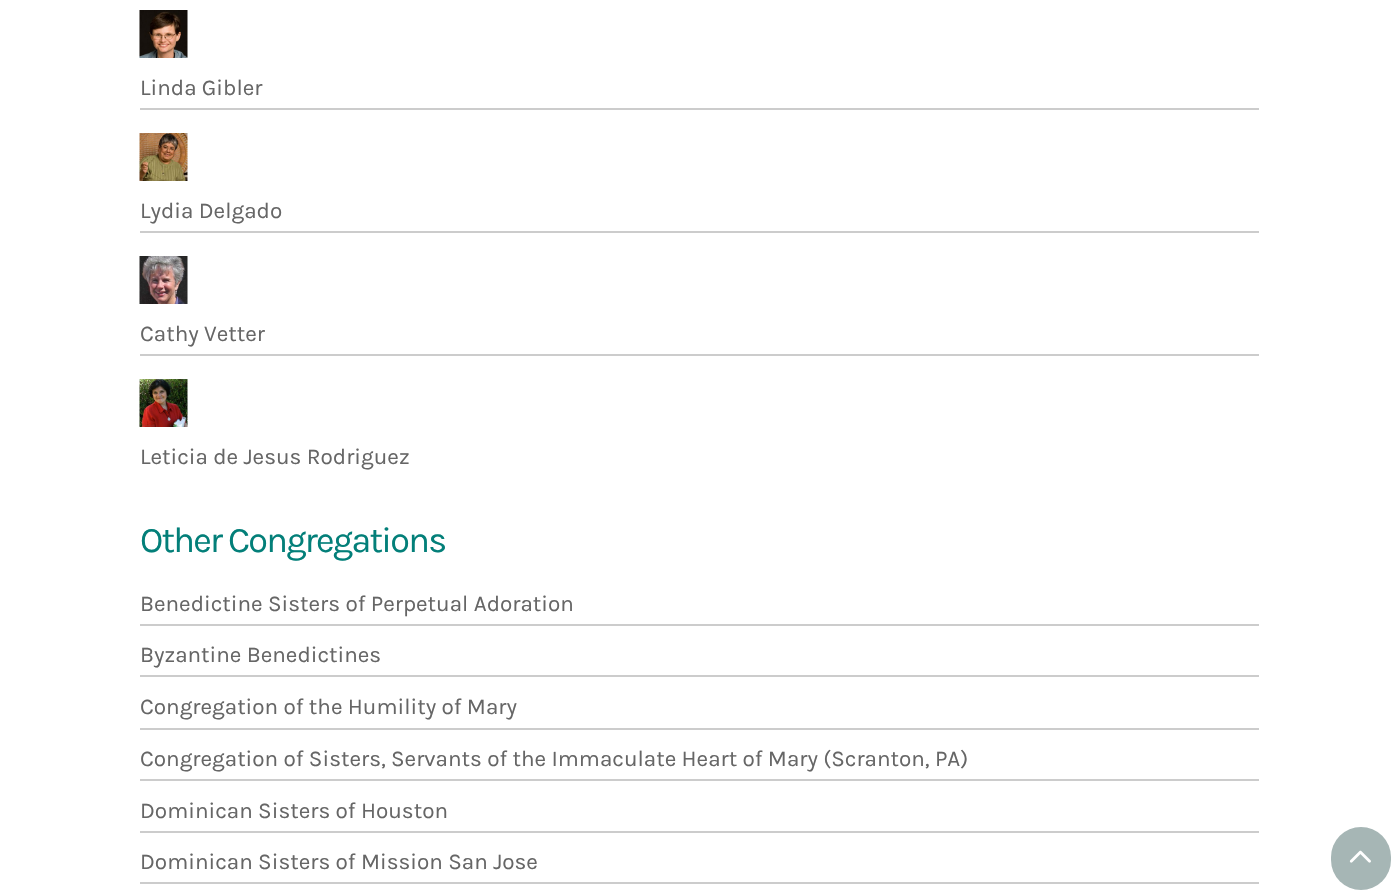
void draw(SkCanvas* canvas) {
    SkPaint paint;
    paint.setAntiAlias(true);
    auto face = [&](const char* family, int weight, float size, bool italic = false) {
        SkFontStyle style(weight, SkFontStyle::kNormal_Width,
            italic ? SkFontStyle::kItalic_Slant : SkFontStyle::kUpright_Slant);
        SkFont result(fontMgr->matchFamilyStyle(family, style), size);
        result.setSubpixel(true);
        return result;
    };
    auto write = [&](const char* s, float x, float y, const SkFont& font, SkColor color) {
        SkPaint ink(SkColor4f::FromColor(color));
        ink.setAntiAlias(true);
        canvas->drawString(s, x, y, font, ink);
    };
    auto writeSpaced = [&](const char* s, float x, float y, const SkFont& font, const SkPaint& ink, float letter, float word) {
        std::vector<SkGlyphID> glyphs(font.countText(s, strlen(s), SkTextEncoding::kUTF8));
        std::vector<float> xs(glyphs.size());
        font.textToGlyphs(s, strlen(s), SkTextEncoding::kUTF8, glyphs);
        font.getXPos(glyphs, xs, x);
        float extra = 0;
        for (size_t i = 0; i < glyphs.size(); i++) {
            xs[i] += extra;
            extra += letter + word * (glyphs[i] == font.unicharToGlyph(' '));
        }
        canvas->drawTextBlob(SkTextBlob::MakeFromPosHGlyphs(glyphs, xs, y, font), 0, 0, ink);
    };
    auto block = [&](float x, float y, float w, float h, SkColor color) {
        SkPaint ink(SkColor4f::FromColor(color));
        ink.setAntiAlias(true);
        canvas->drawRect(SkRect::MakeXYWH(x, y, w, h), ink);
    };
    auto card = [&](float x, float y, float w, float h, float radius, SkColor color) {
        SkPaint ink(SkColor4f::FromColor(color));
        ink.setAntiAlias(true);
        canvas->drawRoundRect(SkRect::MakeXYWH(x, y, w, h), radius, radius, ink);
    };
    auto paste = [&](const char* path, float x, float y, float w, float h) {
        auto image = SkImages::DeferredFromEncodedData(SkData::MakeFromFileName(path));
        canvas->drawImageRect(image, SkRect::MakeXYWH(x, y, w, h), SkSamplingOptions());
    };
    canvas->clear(SK_ColorWHITE);
    block(140, 108, 1119, 2, SkColorSetRGB(204, 204, 204));
    paste("pic1.png", 139, 10, 49, 48);
    auto kFont1 = face("Karla", 400, 22.5f);
    write("Linda Gibler", 140, 95, kFont1, SkColorSetRGB(102, 102, 102));
    block(140, 231, 1119, 2, SkColorSetRGB(204, 204, 204));
    paste("pic2.png", 139, 133, 49, 48);
    write("Lydia Delgado", 140, 218, kFont1, SkColorSetRGB(102, 102, 102));
    block(140, 354, 1119, 2, SkColorSetRGB(204, 204, 204));
    paste("pic3.png", 139, 256, 49, 48);
    write("Cathy Vetter", 140, 341, kFont1, SkColorSetRGB(102, 102, 102));
    paste("pic4.png", 139, 379, 49, 48);
    write("Leticia de Jesus Rodriguez", 140, 464, kFont1, SkColorSetRGB(102, 102, 102));
    auto kFont2 = face("Karla", 400, 36);
    paint.setColor(SkColorSetRGB(3, 127, 121));
    writeSpaced("Other Congregations", 140, 552, kFont2, paint, -1.75f, 0);
    block(140, 624, 1119, 2, SkColorSetRGB(204, 204, 204));
    write("Benedictine Sisters of Perpetual Adoration", 140, 611, kFont1, SkColorSetRGB(102, 102, 102));
    block(140, 675, 1119, 2, SkColorSetRGB(204, 204, 204));
    write("Byzantine Benedictines", 140, 662, kFont1, SkColorSetRGB(102, 102, 102));
    block(140, 728, 1119, 2, SkColorSetRGB(204, 204, 204));
    write("Congregation of the Humility of Mary", 140, 714, kFont1, SkColorSetRGB(102, 102, 102));
    block(140, 779, 1119, 2, SkColorSetRGB(204, 204, 204));
    write("Congregation of Sisters, Servants of the Immaculate Heart of Mary (Scranton, PA)", 140, 766, kFont1, SkColorSetRGB(102, 102, 102));
    block(140, 831, 1119, 2, SkColorSetRGB(204, 204, 204));
    write("Dominican Sisters of Houston", 140, 818, kFont1, SkColorSetRGB(102, 102, 102));
    block(140, 882, 1119, 2, SkColorSetRGB(204, 204, 204));
    write("Dominican Sisters of Mission San Jose", 140, 869, kFont1, SkColorSetRGB(102, 102, 102));
    card(1331, 827, 60, 63, 30, SkColorSetRGB(166, 182, 181));
    paste("pic5.png", 1349, 850, 22, 13);
}
